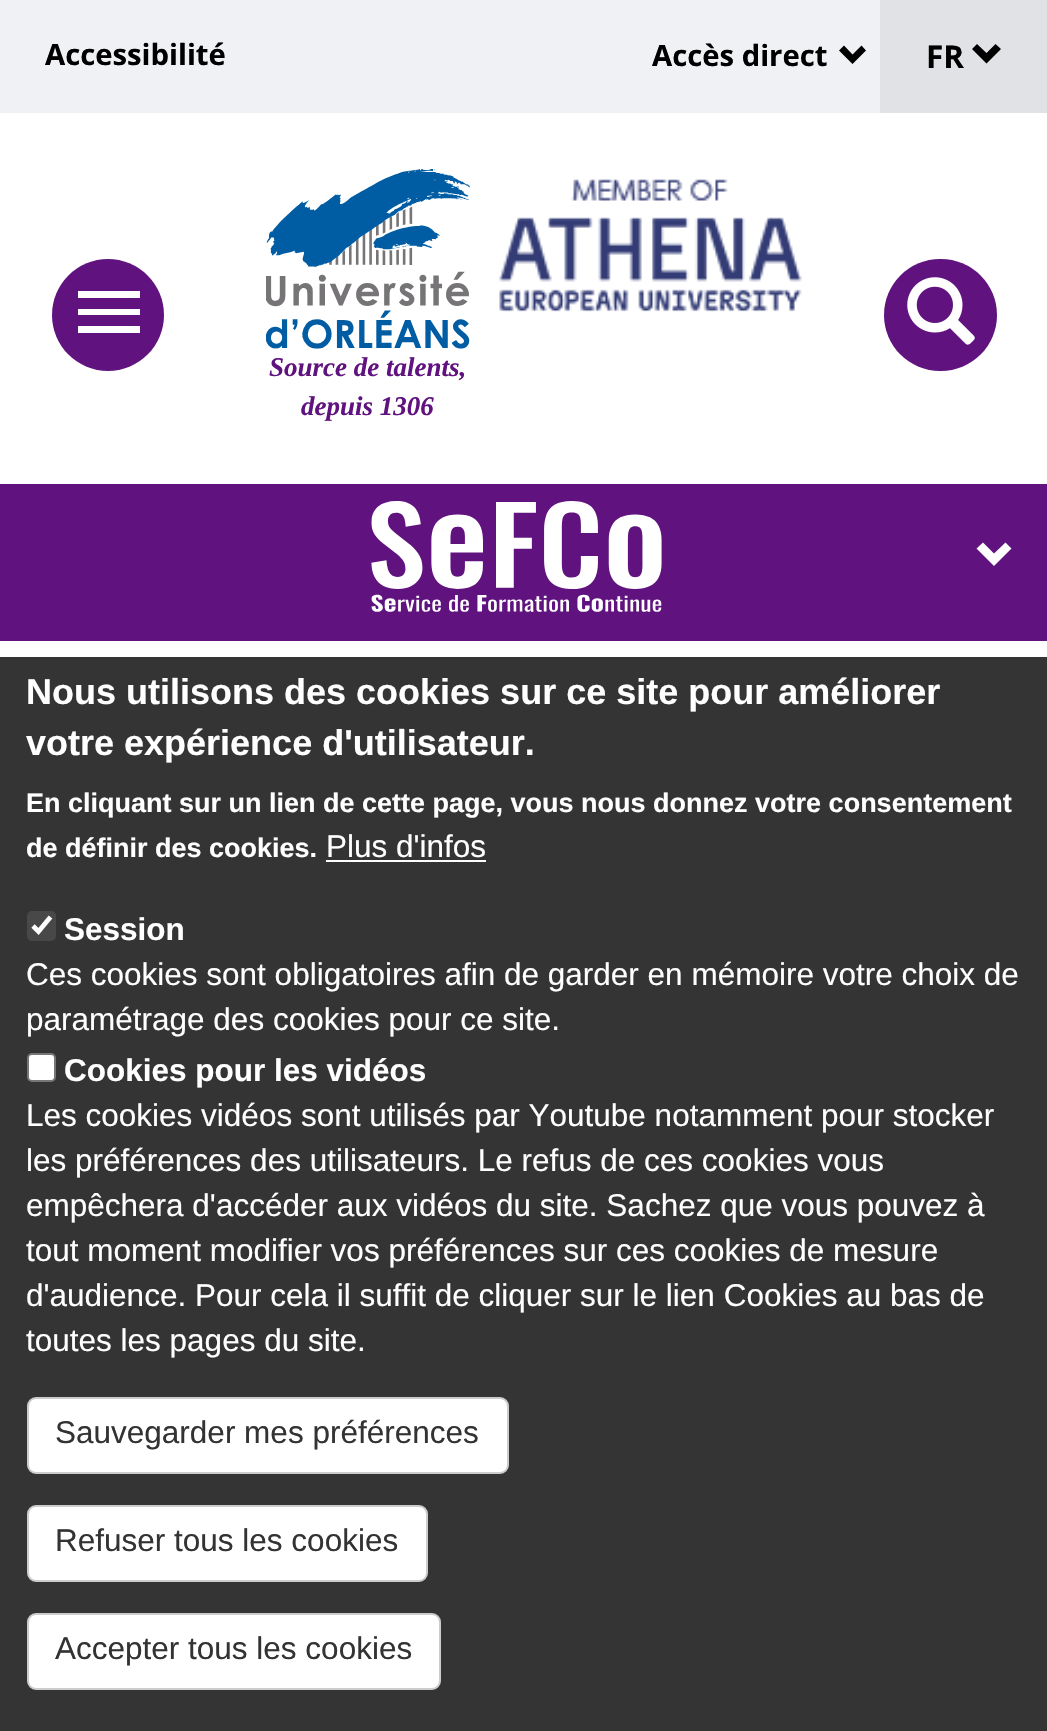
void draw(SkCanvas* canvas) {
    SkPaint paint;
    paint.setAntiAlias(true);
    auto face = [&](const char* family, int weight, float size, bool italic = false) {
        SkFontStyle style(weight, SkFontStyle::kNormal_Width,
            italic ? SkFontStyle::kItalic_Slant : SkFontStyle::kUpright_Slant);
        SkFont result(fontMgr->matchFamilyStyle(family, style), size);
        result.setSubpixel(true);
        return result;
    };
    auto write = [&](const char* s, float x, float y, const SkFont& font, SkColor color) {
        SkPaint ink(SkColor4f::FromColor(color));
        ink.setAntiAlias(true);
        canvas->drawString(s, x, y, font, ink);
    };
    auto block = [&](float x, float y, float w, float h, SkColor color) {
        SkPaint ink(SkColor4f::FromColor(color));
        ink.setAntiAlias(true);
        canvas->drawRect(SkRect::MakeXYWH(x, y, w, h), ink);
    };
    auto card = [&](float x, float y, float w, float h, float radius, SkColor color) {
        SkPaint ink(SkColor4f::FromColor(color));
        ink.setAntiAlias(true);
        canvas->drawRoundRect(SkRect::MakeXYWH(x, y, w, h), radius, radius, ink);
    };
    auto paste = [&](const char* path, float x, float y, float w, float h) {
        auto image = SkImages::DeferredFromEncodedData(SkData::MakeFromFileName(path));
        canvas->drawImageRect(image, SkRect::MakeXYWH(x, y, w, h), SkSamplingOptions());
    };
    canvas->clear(SK_ColorWHITE);
    block(0, 0, 880, 113, SkColorSetRGB(239, 241, 245));
    auto kFont1 = face("Open Sans", 700, 29.25f);
    write("Accessibilité", 45, 65, kFont1, SK_ColorBLACK);
    write("Accès direct", 652, 66, kFont1, SK_ColorBLACK);
    paint.setColor(SK_ColorBLACK);
    canvas->drawPath(SkPathBuilder().moveTo(866, 50.5f).lineTo(852.5f, 64).lineTo(839, 50.5f).lineTo(844, 45.5f).lineTo(852.5f, 54.5f).lineTo(861.5f, 45.5f).close().detach(), paint);
    block(880, 0, 167, 113, SkColorSetRGB(224, 226, 229));
    auto kFont2 = face("Open Sans", 700, 31.5f);
    write("FR", 926, 68, kFont2, SK_ColorBLACK);
    canvas->drawPath(SkPathBuilder().moveTo(1001, 49).lineTo(986.5f, 63.5f).lineTo(972, 49).lineTo(977, 44).lineTo(986.5f, 53).lineTo(995.5f, 44).close().detach(), paint);
    paint.setColor(SkColorSetRGB(96, 18, 126));
    canvas->drawCircle(108, 315, 56, paint);
    paint.setColor(SK_ColorWHITE);
    canvas->drawPath(SkPathBuilder().moveTo(78, 291).lineTo(140, 291).lineTo(140, 298).lineTo(78, 298).close().moveTo(78, 309).lineTo(140, 309).lineTo(140, 315).lineTo(78, 315).close().moveTo(78, 326).lineTo(140, 326).lineTo(140, 333).lineTo(78, 333).close().detach(), paint);
    card(884, 259, 113, 112, 56, SkColorSetRGB(96, 18, 126));
    paste("pic1.png", 907, 277, 68, 68);
    paste("pic2.png", 499, 179, 303, 133);
    paste("pic3.png", 266, 169, 204, 180);
    auto kFont3 = face("Liberation Serif", 700, 27, true);
    write("Source de talents,", 269, 376, kFont3, SkColorSetRGB(96, 18, 126));
    write("depuis 1306", 301, 415, kFont3, SkColorSetRGB(96, 18, 126));
    block(0, 484, 1047, 157, SkColorSetRGB(96, 18, 126));
    paste("pic4.png", 371, 501, 291, 111);
    canvas->drawPath(SkPathBuilder().moveTo(1011.5f, 548.5f).lineTo(994, 566).lineTo(976.5f, 548.5f).lineTo(983, 542.5f).lineTo(994, 553.5f).lineTo(1005.5f, 542.5f).close().detach(), paint);
    block(0, 657, 1047, 1074, SkColorSetRGB(53, 52, 53));
    auto kFont4 = face("Liberation Sans", 700, 36);
    write("Nous utilisons des cookies sur ce site pour améliorer", 26, 704, kFont4, SK_ColorWHITE);
    write("votre expérience d'utilisateur.", 26, 755, kFont4, SK_ColorWHITE);
    auto kFont5 = face("Liberation Sans", 700, 27);
    write("En cliquant sur un lien de cette page, vous nous donnez votre consentement", 26, 812, kFont5, SK_ColorWHITE);
    write("de définir des cookies.", 26, 857, kFont5, SK_ColorWHITE);
    auto kFont6 = face("Liberation Sans", 400, 31.5f);
    write("Plus d'infos", 326, 857, kFont6, SK_ColorWHITE);
    block(326, 860, 160, 2, SK_ColorWHITE);
    card(27, 911, 29, 30, 5, SkColorSetRGB(73, 72, 73));
    paint.setStyle(SkPaint::kStroke_Style);
    paint.setStrokeWidth(4.7f);
    canvas->drawPath(SkPathBuilder().moveTo(33, 926).lineTo(38.5f, 931.5f).lineTo(50.5f, 917).detach(), paint);
    auto kFont7 = face("Liberation Sans", 700, 31.5f);
    write("Session", 64, 940, kFont7, SK_ColorWHITE);
    write("Ces cookies sont obligatoires afin de garder en mémoire votre choix de", 26, 985, kFont6, SK_ColorWHITE);
    write("paramétrage des cookies pour ce site.", 26, 1030, kFont6, SK_ColorWHITE);
    paint.setStyle(SkPaint::kFill_Style);
    canvas->drawRoundRect(SkRect::MakeXYWH(28, 1054, 27, 27), 4, 4, paint);
    paint.setStyle(SkPaint::kStroke_Style);
    paint.setStrokeWidth(2);
    paint.setColor(SkColorSetRGB(118, 118, 118));
    canvas->drawRoundRect(SkRect::MakeXYWH(28, 1054, 27, 27), 4, 4, paint);
    write("Cookies pour les vidéos", 64, 1081, kFont7, SK_ColorWHITE);
    write("Les cookies vidéos sont utilisés par Youtube notamment pour stocker", 26, 1126, kFont6, SK_ColorWHITE);
    write("les préférences des utilisateurs. Le refus de ces cookies vous", 26, 1171, kFont6, SK_ColorWHITE);
    write("empêchera d'accéder aux vidéos du site. Sachez que vous pouvez à", 26, 1216, kFont6, SK_ColorWHITE);
    write("tout moment modifier vos préférences sur ces cookies de mesure", 26, 1261, kFont6, SK_ColorWHITE);
    write("d'audience. Pour cela il suffit de cliquer sur le lien Cookies au bas de", 26, 1306, kFont6, SK_ColorWHITE);
    write("toutes les pages du site.", 26, 1351, kFont6, SK_ColorWHITE);
    paint.setStyle(SkPaint::kFill_Style);
    paint.setColor(SK_ColorWHITE);
    canvas->drawRoundRect(SkRect::MakeXYWH(28, 1398, 480, 75), 8, 8, paint);
    paint.setStyle(SkPaint::kStroke_Style);
    paint.setColor(SkColorSetRGB(204, 204, 204));
    canvas->drawRoundRect(SkRect::MakeXYWH(28, 1398, 480, 75), 8, 8, paint);
    write("Sauvegarder mes préférences", 55, 1443, kFont6, SkColorSetRGB(51, 51, 51));
    paint.setStyle(SkPaint::kFill_Style);
    paint.setColor(SK_ColorWHITE);
    canvas->drawRoundRect(SkRect::MakeXYWH(28, 1506, 399, 75), 8, 8, paint);
    paint.setStyle(SkPaint::kStroke_Style);
    paint.setColor(SkColorSetRGB(204, 204, 204));
    canvas->drawRoundRect(SkRect::MakeXYWH(28, 1506, 399, 75), 8, 8, paint);
    write("Refuser tous les cookies", 55, 1551, kFont6, SkColorSetRGB(51, 51, 51));
    paint.setStyle(SkPaint::kFill_Style);
    paint.setColor(SK_ColorWHITE);
    canvas->drawRoundRect(SkRect::MakeXYWH(28, 1614, 412, 75), 8, 8, paint);
    paint.setStyle(SkPaint::kStroke_Style);
    paint.setColor(SkColorSetRGB(204, 204, 204));
    canvas->drawRoundRect(SkRect::MakeXYWH(28, 1614, 412, 75), 8, 8, paint);
    write("Accepter tous les cookies", 55, 1659, kFont6, SkColorSetRGB(51, 51, 51));
}
